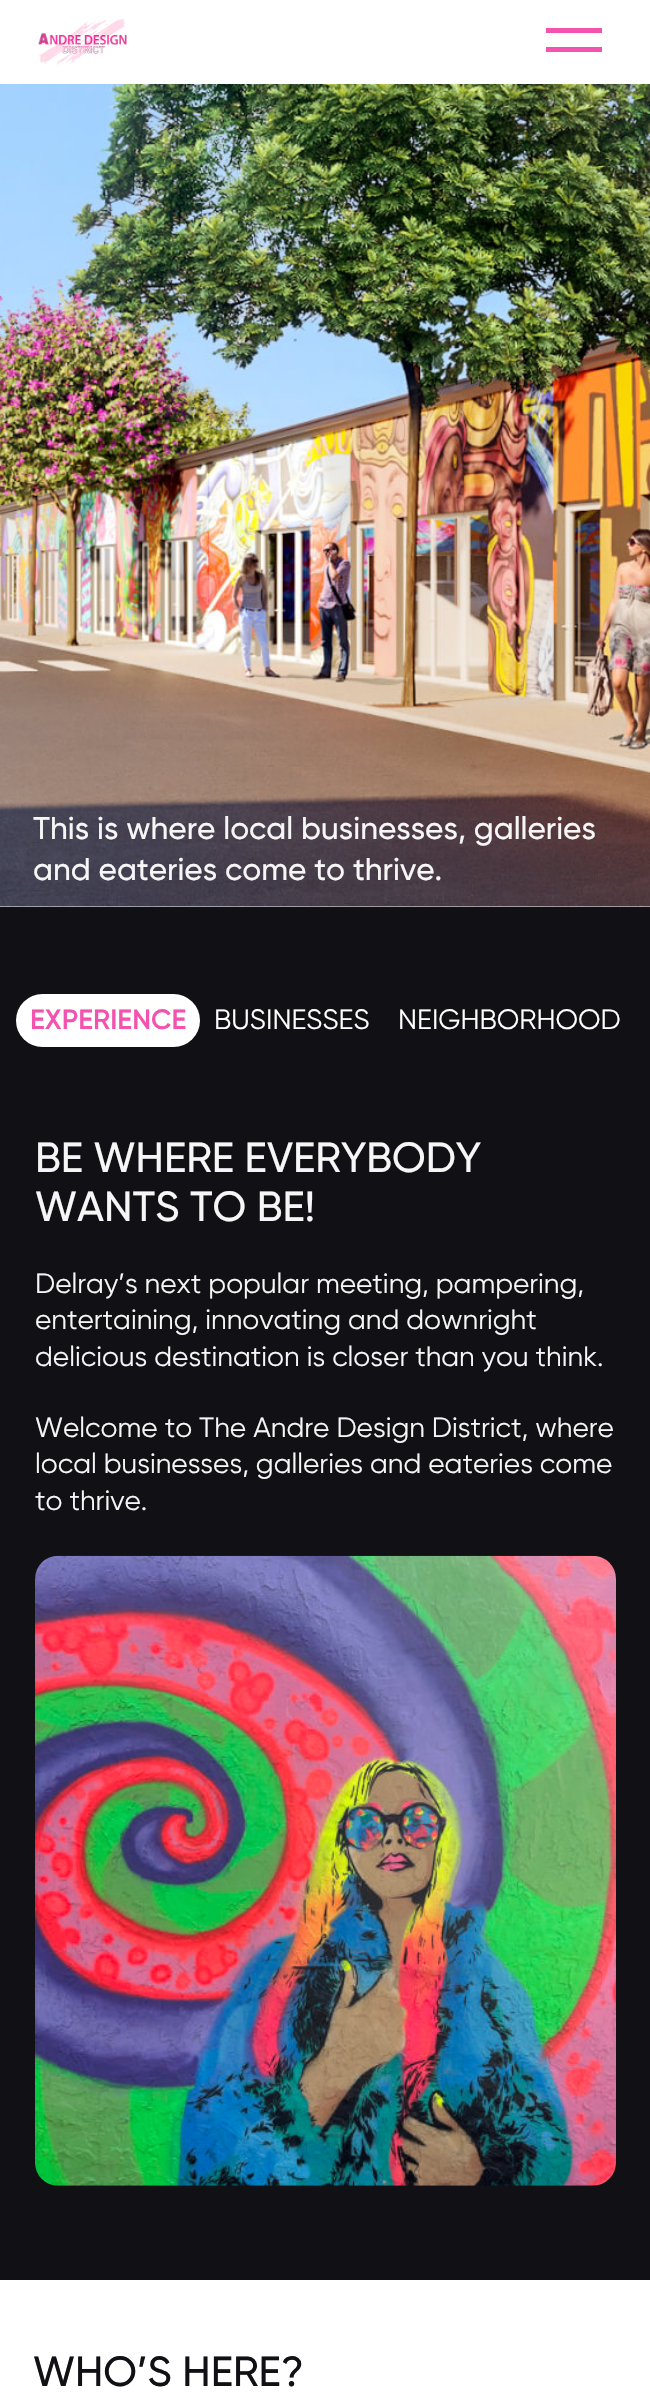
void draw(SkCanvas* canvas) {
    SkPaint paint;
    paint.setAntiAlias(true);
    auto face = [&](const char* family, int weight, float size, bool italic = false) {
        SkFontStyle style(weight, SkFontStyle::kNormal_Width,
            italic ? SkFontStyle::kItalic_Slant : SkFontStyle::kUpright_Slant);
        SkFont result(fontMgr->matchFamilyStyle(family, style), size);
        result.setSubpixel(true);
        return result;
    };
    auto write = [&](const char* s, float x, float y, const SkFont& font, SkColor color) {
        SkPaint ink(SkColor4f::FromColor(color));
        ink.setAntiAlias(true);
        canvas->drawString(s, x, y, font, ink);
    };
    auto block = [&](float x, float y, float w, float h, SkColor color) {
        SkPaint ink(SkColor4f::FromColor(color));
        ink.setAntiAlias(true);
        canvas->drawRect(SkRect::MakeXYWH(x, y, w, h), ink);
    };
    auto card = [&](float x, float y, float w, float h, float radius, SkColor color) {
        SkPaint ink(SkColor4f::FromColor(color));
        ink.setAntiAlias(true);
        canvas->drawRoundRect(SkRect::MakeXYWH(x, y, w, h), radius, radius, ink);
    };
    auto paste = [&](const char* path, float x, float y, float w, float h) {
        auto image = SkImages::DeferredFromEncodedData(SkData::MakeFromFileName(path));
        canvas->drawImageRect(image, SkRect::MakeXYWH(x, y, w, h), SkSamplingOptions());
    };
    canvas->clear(SK_ColorWHITE);
    paste("pic1.png", 38, 18, 89, 47);
    block(546, 28, 56, 5, SkColorSetRGB(243, 83, 174));
    block(546, 47, 56, 5, SkColorSetRGB(243, 83, 174));
    paste("pic2.png", 0, 84, 650, 823);
    auto kFont1 = face("Gilroy", 500, 31.5f);
    write("This is where local businesses, galleries", 33, 839, kFont1, SkColorSetRGB(247, 246, 246));
    write("and eateries come to thrive.", 33, 880, kFont1, SkColorSetRGB(247, 246, 246));
    block(0, 907, 650, 1373, SkColorSetRGB(16, 16, 21));
    card(16, 994, 184, 53, 26.5f, SK_ColorWHITE);
    auto kFont2 = face("Gilroy", 600, 28);
    write("EXPERIENCE", 30, 1029, kFont2, SkColorSetRGB(243, 83, 174));
    auto kFont3 = face("Gilroy", 400, 28);
    write("BUSINESSES", 214, 1029, kFont3, SK_ColorWHITE);
    write("NEIGHBORHOOD", 398, 1029, kFont3, SK_ColorWHITE);
    auto kFont4 = face("Gilroy", 500, 42);
    write("BE WHERE EVERYBODY", 35, 1172, kFont4, SkColorSetRGB(247, 246, 246));
    write("WANTS TO BE!", 35, 1221, kFont4, SkColorSetRGB(247, 246, 246));
    write("Delray’s next popular meeting, pampering,", 35, 1293, kFont3, SkColorSetRGB(247, 246, 246));
    write("entertaining, innovating and downright", 35, 1329, kFont3, SkColorSetRGB(247, 246, 246));
    write("delicious destination is closer than you think.", 35, 1366, kFont3, SkColorSetRGB(247, 246, 246));
    write("Welcome to The Andre Design District, where", 35, 1437, kFont3, SkColorSetRGB(247, 246, 246));
    write("local businesses, galleries and eateries come", 35, 1473, kFont3, SkColorSetRGB(247, 246, 246));
    write("to thrive.", 35, 1510, kFont3, SkColorSetRGB(247, 246, 246));
    paste("pic3.png", 35, 1555, 581, 631);
    write("WHO’S HERE?", 33, 2386, kFont4, SkColorSetRGB(16, 16, 21));
}
